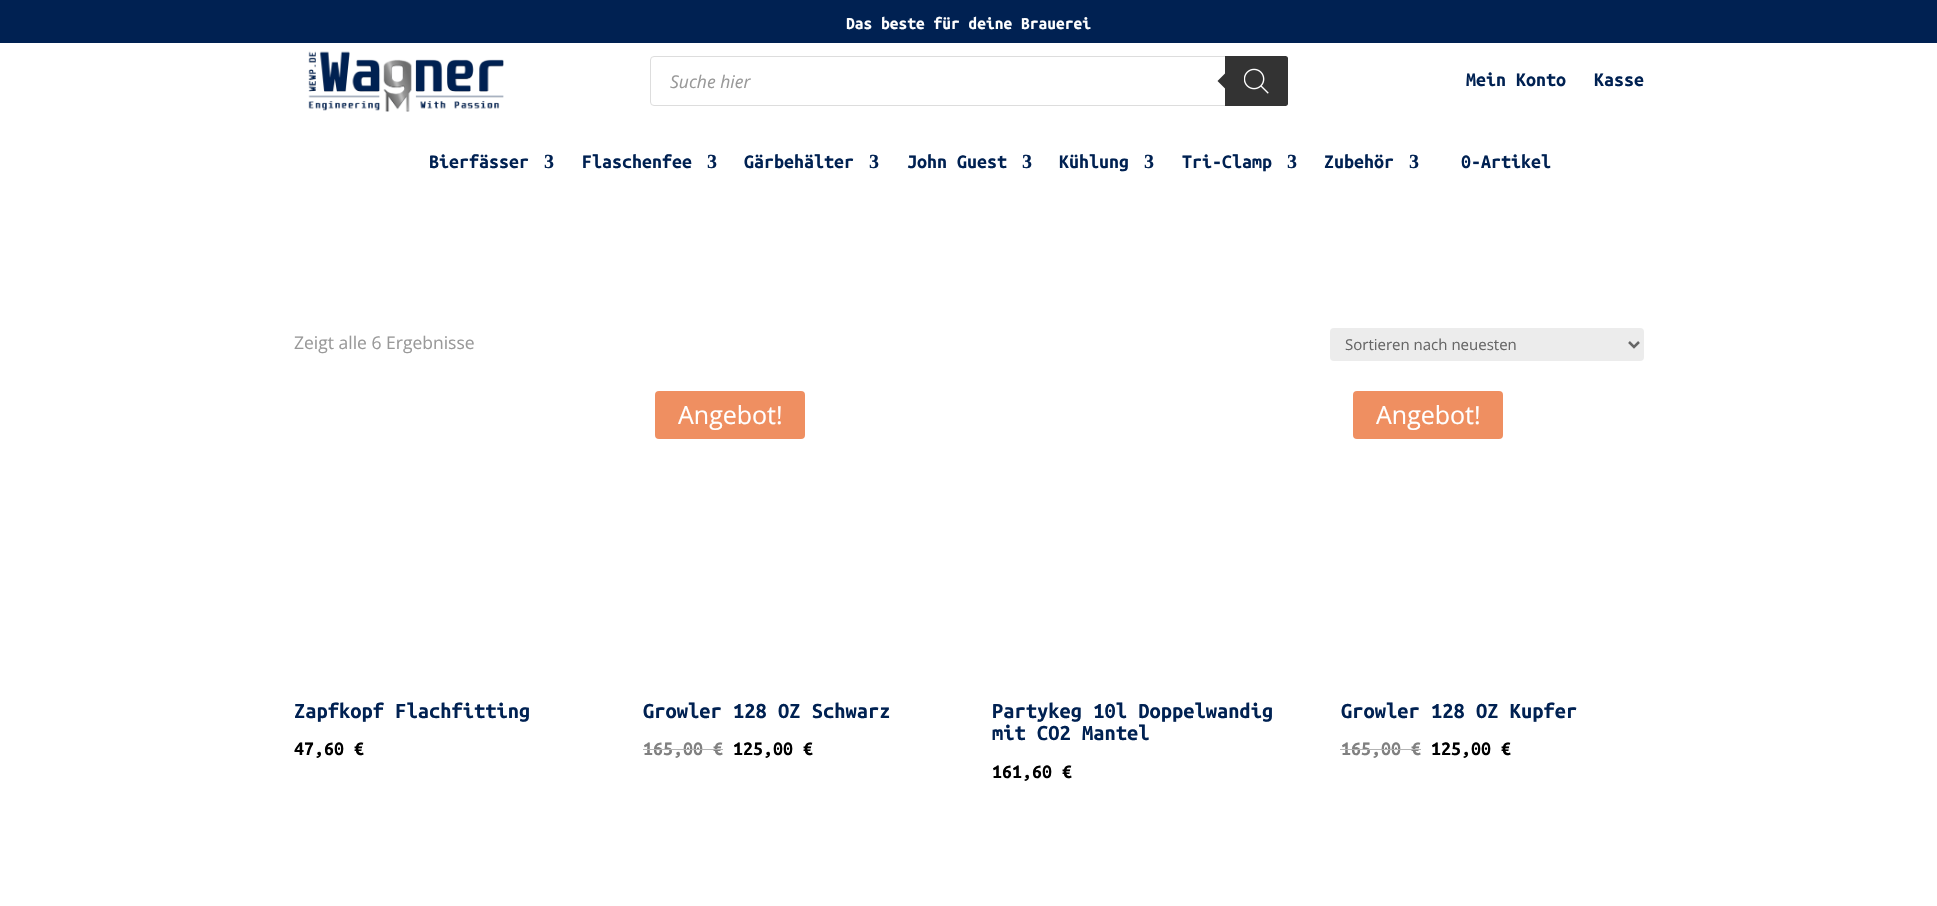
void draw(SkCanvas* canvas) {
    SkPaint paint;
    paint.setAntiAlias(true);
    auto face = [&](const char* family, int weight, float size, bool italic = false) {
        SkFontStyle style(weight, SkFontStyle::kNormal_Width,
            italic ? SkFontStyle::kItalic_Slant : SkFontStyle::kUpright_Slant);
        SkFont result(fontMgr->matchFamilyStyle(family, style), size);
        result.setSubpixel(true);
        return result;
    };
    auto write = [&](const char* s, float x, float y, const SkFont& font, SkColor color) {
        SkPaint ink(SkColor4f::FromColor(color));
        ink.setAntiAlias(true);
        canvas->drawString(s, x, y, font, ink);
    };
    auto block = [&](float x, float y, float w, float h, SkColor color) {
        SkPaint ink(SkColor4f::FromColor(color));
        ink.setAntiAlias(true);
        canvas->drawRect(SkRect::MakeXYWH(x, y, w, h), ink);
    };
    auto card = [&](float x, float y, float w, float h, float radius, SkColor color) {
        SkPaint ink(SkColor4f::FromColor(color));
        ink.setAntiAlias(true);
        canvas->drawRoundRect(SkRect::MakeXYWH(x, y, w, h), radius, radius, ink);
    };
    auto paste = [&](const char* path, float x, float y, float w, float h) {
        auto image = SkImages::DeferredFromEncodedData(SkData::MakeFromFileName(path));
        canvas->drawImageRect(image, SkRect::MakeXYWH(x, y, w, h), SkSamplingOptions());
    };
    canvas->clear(SK_ColorWHITE);
    block(0, 0, 1937, 43, SkColorSetRGB(0, 33, 82));
    auto kFont1 = face("Ubuntu Mono", 700, 17.5f);
    write("Das beste für deine Brauerei", 846, 29, kFont1, SK_ColorWHITE);
    paste("pic1.png", 308, 51, 196, 61);
    paint.setStyle(SkPaint::kStroke_Style);
    paint.setStrokeWidth(1);
    paint.setColor(SkColorSetRGB(221, 221, 221));
    canvas->drawRoundRect(SkRect::MakeXYWH(650.5f, 56.5f, 637, 49), 3.5f, 3.5f, paint);
    auto kFont2 = face("Open Sans", 400, 17.5f, true);
    write("Suche hier", 670, 88, kFont2, SkColorSetRGB(153, 153, 153));
    paint.setStyle(SkPaint::kFill_Style);
    paint.setColor(SkColorSetRGB(51, 51, 51));
    canvas->drawPath(SkPathBuilder().moveTo(1225, 56).lineTo(1285.5f, 56).cubicTo(1287, 56, 1288, 57, 1288, 58.5f).lineTo(1288, 103.5f).cubicTo(1288, 105, 1287, 106, 1285.5f, 106).lineTo(1225, 106).close().detach(), paint);
    canvas->drawPath(SkPathBuilder().moveTo(1227.5f, 71).lineTo(1227.5f, 91).lineTo(1217.5f, 81).close().detach(), paint);
    paste("pic2.png", 1244, 68, 25, 26);
    auto kFont3 = face("Ubuntu Mono", 700, 20);
    write("Mein Konto", 1466, 86, kFont3, SkColorSetRGB(0, 33, 82));
    write("Kasse", 1594, 86, kFont3, SkColorSetRGB(0, 33, 82));
    write("Bierfässer", 429, 168, kFont3, SkColorSetRGB(0, 33, 82));
    auto kFont4 = face("Liberation Serif", 700, 20);
    write("3", 544, 168, kFont4, SkColorSetRGB(0, 33, 82));
    write("Flaschenfee", 582, 168, kFont3, SkColorSetRGB(0, 33, 82));
    write("3", 707, 168, kFont4, SkColorSetRGB(0, 33, 82));
    write("Gärbehälter", 744, 168, kFont3, SkColorSetRGB(0, 33, 82));
    write("3", 869, 168, kFont4, SkColorSetRGB(0, 33, 82));
    write("John Guest", 907, 168, kFont3, SkColorSetRGB(0, 33, 82));
    write("3", 1022, 168, kFont4, SkColorSetRGB(0, 33, 82));
    write("Kühlung", 1059, 168, kFont3, SkColorSetRGB(0, 33, 82));
    write("3", 1144, 168, kFont4, SkColorSetRGB(0, 33, 82));
    write("Tri-Clamp", 1182, 168, kFont3, SkColorSetRGB(0, 33, 82));
    write("3", 1287, 168, kFont4, SkColorSetRGB(0, 33, 82));
    write("Zubehör", 1324, 168, kFont3, SkColorSetRGB(0, 33, 82));
    write("3", 1409, 168, kFont4, SkColorSetRGB(0, 33, 82));
    write("0-Artikel", 1461, 168, kFont3, SkColorSetRGB(0, 33, 82));
    auto kFont5 = face("Open Sans", 400, 17.5f);
    write("Zeigt alle 6 Ergebnisse", 294, 349, kFont5, SkColorSetRGB(153, 153, 153));
    card(1330, 328, 314, 33, 4, SkColorSetRGB(236, 236, 236));
    paint.setStyle(SkPaint::kStroke_Style);
    paint.setStrokeWidth(2.5f);
    paint.setColor(SkColorSetRGB(102, 102, 102));
    canvas->drawPath(SkPathBuilder().moveTo(1629, 342).lineTo(1634, 347).lineTo(1639, 342).detach(), paint);
    auto kFont6 = face("Open Sans", 400, 15);
    write("Sortieren nach neuesten", 1345, 350, kFont6, SkColorSetRGB(102, 102, 102));
    auto kFont7 = face("Ubuntu Mono", 700, 22.5f);
    write("Zapfkopf Flachfitting", 294, 718, kFont7, SkColorSetRGB(0, 33, 82));
    write("47,60 €", 294, 755, kFont3, SK_ColorBLACK);
    card(655, 391, 150, 48, 4, SkColorSetRGB(239, 143, 97));
    auto kFont8 = face("Open Sans", 400, 25);
    write("Angebot!", 678, 424, kFont8, SK_ColorWHITE);
    write("Growler 128 OZ Schwarz", 643, 718, kFont7, SkColorSetRGB(0, 33, 82));
    write("165,00 €", 643, 755, kFont3, SkColorSetRGB(128, 128, 128));
    block(643, 749, 80, 1, SkColorSetRGB(179, 179, 179));
    write("125,00 €", 733, 755, kFont3, SK_ColorBLACK);
    write("Partykeg 10l Doppelwandig", 992, 718, kFont7, SkColorSetRGB(0, 33, 82));
    write("mit CO2 Mantel", 992, 740, kFont7, SkColorSetRGB(0, 33, 82));
    write("161,60 €", 992, 778, kFont3, SK_ColorBLACK);
    card(1353, 391, 150, 48, 4, SkColorSetRGB(239, 143, 97));
    write("Angebot!", 1376, 424, kFont8, SK_ColorWHITE);
    write("Growler 128 OZ Kupfer", 1341, 718, kFont7, SkColorSetRGB(0, 33, 82));
    write("165,00 €", 1341, 755, kFont3, SkColorSetRGB(128, 128, 128));
    block(1340, 749, 81, 1, SkColorSetRGB(179, 179, 179));
    write("125,00 €", 1431, 755, kFont3, SK_ColorBLACK);
}
